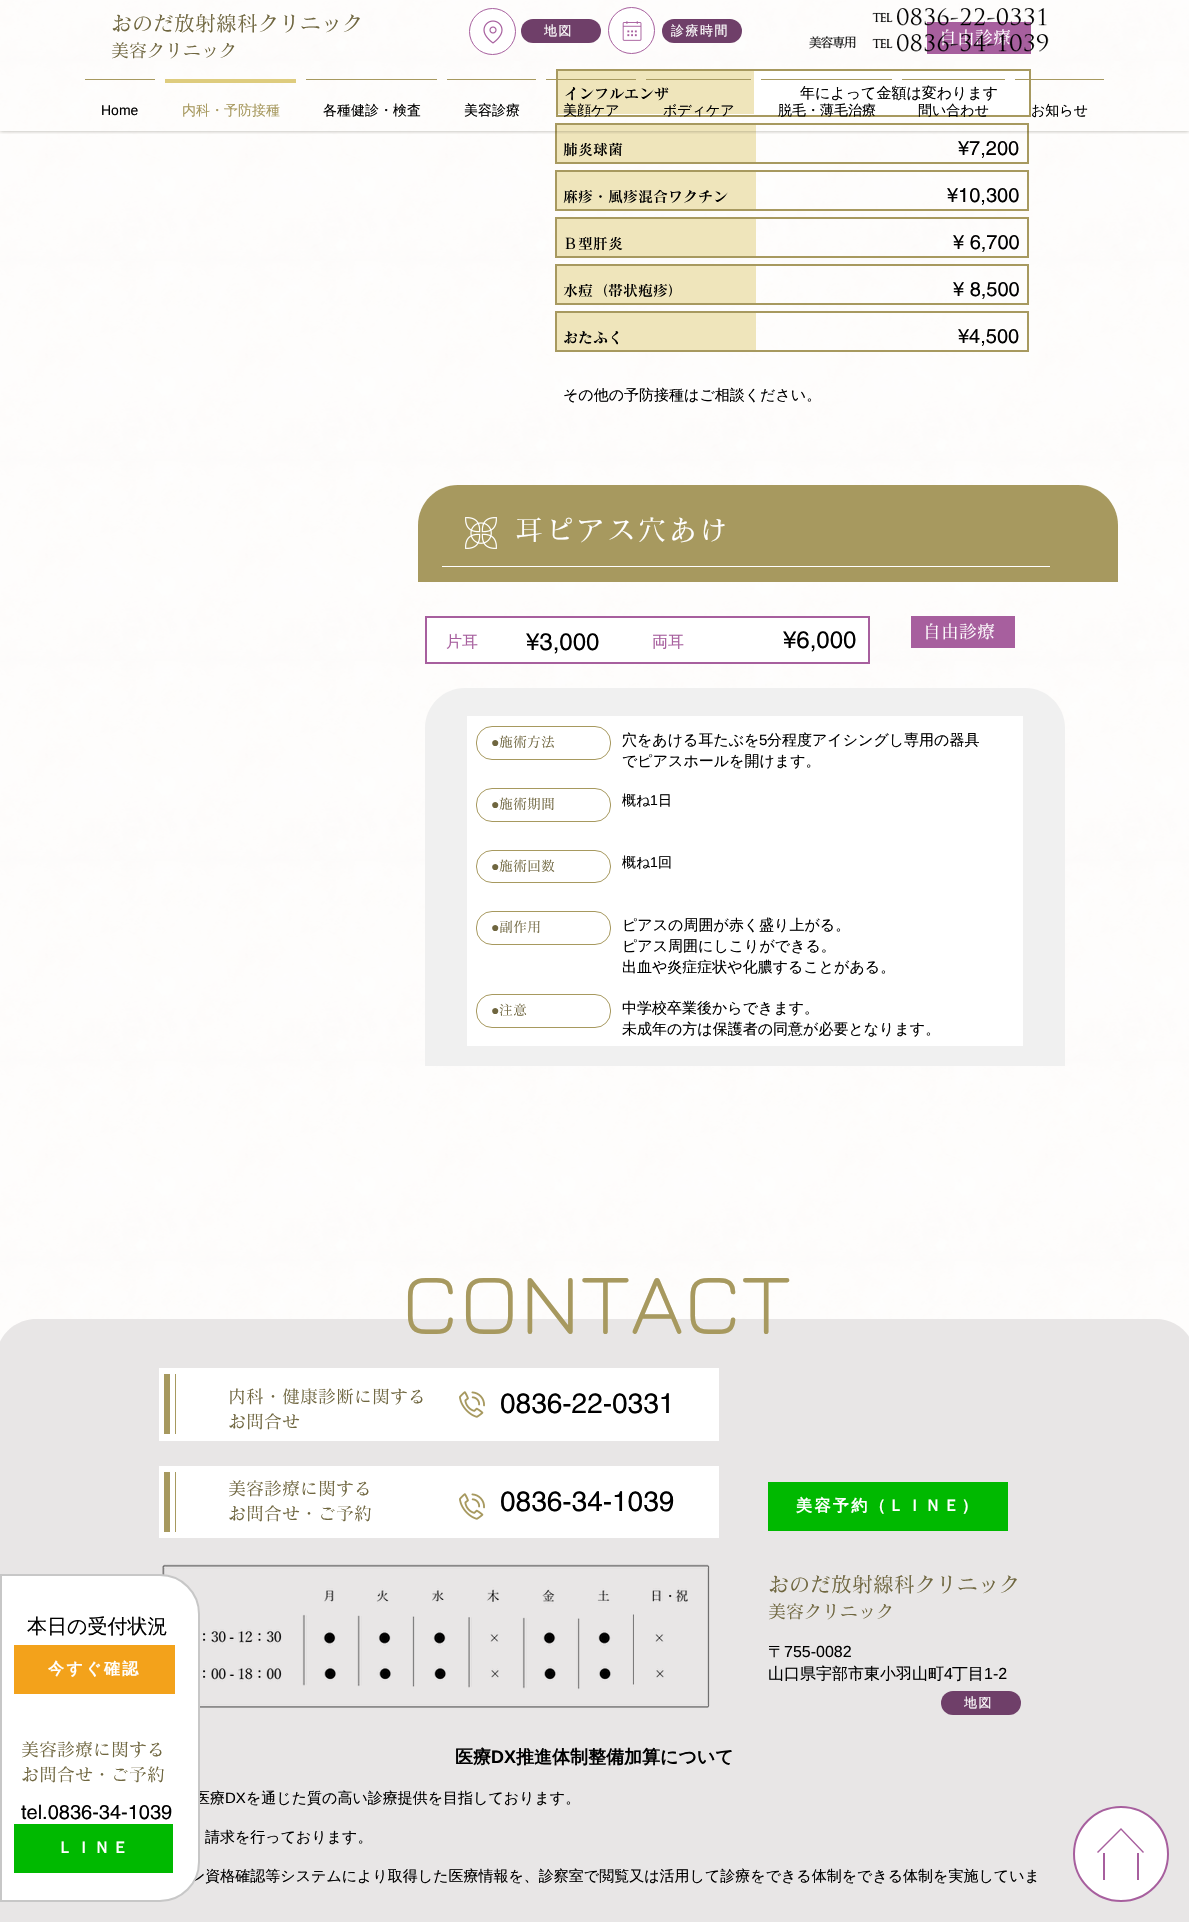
void draw(SkCanvas* canvas) {
    SkPaint paint;
    paint.setAntiAlias(true);
    auto face = [&](const char* family, int weight, float size, bool italic = false) {
        SkFontStyle style(weight, SkFontStyle::kNormal_Width,
            italic ? SkFontStyle::kItalic_Slant : SkFontStyle::kUpright_Slant);
        SkFont result(fontMgr->matchFamilyStyle(family, style), size);
        result.setSubpixel(true);
        return result;
    };
    auto write = [&](const char* s, float x, float y, const SkFont& font, SkColor color) {
        SkPaint ink(SkColor4f::FromColor(color));
        ink.setAntiAlias(true);
        canvas->drawString(s, x, y, font, ink);
    };
    auto writeSpaced = [&](const char* s, float x, float y, const SkFont& font, const SkPaint& ink, float letter, float word) {
        std::vector<SkGlyphID> glyphs(font.countText(s, strlen(s), SkTextEncoding::kUTF8));
        std::vector<float> xs(glyphs.size());
        font.textToGlyphs(s, strlen(s), SkTextEncoding::kUTF8, glyphs);
        font.getXPos(glyphs, xs, x);
        float extra = 0;
        for (size_t i = 0; i < glyphs.size(); i++) {
            xs[i] += extra;
            extra += letter + word * (glyphs[i] == font.unicharToGlyph(' '));
        }
        canvas->drawTextBlob(SkTextBlob::MakeFromPosHGlyphs(glyphs, xs, y, font), 0, 0, ink);
    };
    auto block = [&](float x, float y, float w, float h, SkColor color) {
        SkPaint ink(SkColor4f::FromColor(color));
        ink.setAntiAlias(true);
        canvas->drawRect(SkRect::MakeXYWH(x, y, w, h), ink);
    };
    auto card = [&](float x, float y, float w, float h, float radius, SkColor color) {
        SkPaint ink(SkColor4f::FromColor(color));
        ink.setAntiAlias(true);
        canvas->drawRoundRect(SkRect::MakeXYWH(x, y, w, h), radius, radius, ink);
    };
    auto paste = [&](const char* path, float x, float y, float w, float h) {
        auto image = SkImages::DeferredFromEncodedData(SkData::MakeFromFileName(path));
        canvas->drawImageRect(image, SkRect::MakeXYWH(x, y, w, h), SkSamplingOptions());
    };
    canvas->clear(SK_ColorWHITE);
    paste("pic1.png", 0, 0, 1189, 1342);
    block(927, 22, 104, 32, SkColorSetRGB(167, 95, 158));
    paint.setColor(SK_ColorWHITE);
    canvas->drawRect(SkRect::MakeXYWH(557, 70, 473, 46), paint);
    paint.setStyle(SkPaint::kStroke_Style);
    paint.setStrokeWidth(2);
    paint.setColor(SkColorSetRGB(167, 153, 95));
    canvas->drawRect(SkRect::MakeXYWH(557, 70, 473, 46), paint);
    block(558, 71, 196, 43, SkColorSetRGB(239, 229, 187));
    canvas->drawRect(SkRect::MakeXYWH(556, 124, 472, 39), paint);
    block(557, 125, 199, 37, SkColorSetRGB(239, 229, 187));
    canvas->save();
    canvas->clipRect(SkRect::MakeXYWH(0, 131, 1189, 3));
    paint.setStyle(SkPaint::kFill_Style);
    paint.setColor(SkColorSetARGB(102, 56, 51, 32));
    paint.setMaskFilter(SkMaskFilter::MakeBlur(kNormal_SkBlurStyle, 2));
    canvas->drawRect(SkRect::MakeXYWH(0, 0, 1189, 131), paint);
    paint.setMaskFilter(nullptr);
    canvas->restore();
    auto kFont1 = face("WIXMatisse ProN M", 500, 21);
    write("おのだ放射線科クリニック", 111, 31, kFont1, SkColorSetRGB(111, 102, 63));
    auto kFont2 = face("WIXMatisse ProN M", 500, 18);
    write("美容クリニック", 111, 57, kFont2, SkColorSetRGB(111, 102, 63));
    paint.setColor(SK_ColorWHITE);
    canvas->drawCircle(492.5f, 31.5f, 23, paint);
    paint.setStyle(SkPaint::kStroke_Style);
    paint.setStrokeWidth(1);
    paint.setColor(SkColorSetRGB(167, 95, 158));
    canvas->drawCircle(492.5f, 31.5f, 23, paint);
    paste("pic2.png", 483, 20, 20, 24);
    card(521, 19, 80, 24, 12, SkColorSetRGB(111, 63, 105));
    auto kFont3 = face("WenQuanYi Zen Hei", 500, 13);
    paint.setStyle(SkPaint::kFill_Style);
    paint.setColor(SK_ColorWHITE);
    writeSpaced("地図", 544, 35, kFont3, paint, 1.5f, 0);
    canvas->drawCircle(631.5f, 30.5f, 23, paint);
    paint.setStyle(SkPaint::kStroke_Style);
    paint.setColor(SkColorSetRGB(167, 95, 158));
    canvas->drawCircle(631.5f, 30.5f, 23, paint);
    paste("pic3.png", 622, 21, 20, 20);
    card(662, 19, 80, 24, 12, SkColorSetRGB(111, 63, 105));
    paint.setStyle(SkPaint::kFill_Style);
    paint.setColor(SK_ColorWHITE);
    writeSpaced("診療時間", 671, 35, kFont3, paint, 1.5f, 0);
    write("自由診療", 939, 44, kFont2, SK_ColorWHITE);
    paste("pic4.png", 809, 8, 240, 44);
    block(85, 79, 70, 1, SkColorSetRGB(167, 153, 95));
    auto kFont4 = face("Liberation Sans", 400, 14);
    write("Home", 101, 115, kFont4, SK_ColorBLACK);
    block(165, 79, 131, 4, SkColorSetRGB(222, 204, 126));
    auto kFont5 = face("WenQuanYi Zen Hei", 500, 14);
    write("内科・予防接種", 182, 115, kFont5, SkColorSetRGB(167, 153, 95));
    block(306, 79, 131, 1, SkColorSetRGB(167, 153, 95));
    write("各種健診・検査", 323, 115, kFont5, SK_ColorBLACK);
    block(447, 79, 89, 1, SkColorSetRGB(167, 153, 95));
    write("美容診療", 464, 115, kFont5, SK_ColorBLACK);
    block(546, 79, 90, 1, SkColorSetRGB(167, 153, 95));
    write("美顔ケア", 563, 115, kFont5, SK_ColorBLACK);
    block(646, 79, 105, 1, SkColorSetRGB(167, 153, 95));
    write("ボディケア", 663, 115, kFont5, SK_ColorBLACK);
    block(761, 79, 131, 1, SkColorSetRGB(167, 153, 95));
    write("脱毛・薄毛治療", 778, 115, kFont5, SK_ColorBLACK);
    block(902, 79, 103, 1, SkColorSetRGB(167, 153, 95));
    write("問い合わせ", 918, 115, kFont5, SK_ColorBLACK);
    block(1015, 79, 89, 1, SkColorSetRGB(167, 153, 95));
    write("お知らせ", 1031, 115, kFont5, SK_ColorBLACK);
    auto kFont6 = face("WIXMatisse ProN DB", 600, 15);
    write("インフルエンザ", 564, 99, kFont6, SK_ColorBLACK);
    auto kFont7 = face("WenQuanYi Zen Hei", 500, 15);
    write("年によって金額は変わります", 800, 98, kFont7, SK_ColorBLACK);
    write("肺炎球菌", 563, 155, kFont6, SK_ColorBLACK);
    auto kFont8 = face("helvetica", 400, 20);
    write("¥7,200", 958, 155, kFont8, SK_ColorBLACK);
    paint.setStyle(SkPaint::kStroke_Style);
    paint.setStrokeWidth(2);
    paint.setColor(SkColorSetRGB(167, 153, 95));
    canvas->drawRect(SkRect::MakeXYWH(556, 171, 472, 39), paint);
    block(557, 172, 199, 37, SkColorSetRGB(239, 229, 187));
    write("麻疹・ 風疹混合ワクチン", 563, 202, kFont6, SK_ColorBLACK);
    write("¥10,300", 947, 202, kFont8, SK_ColorBLACK);
    canvas->drawRect(SkRect::MakeXYWH(556, 218, 472, 39), paint);
    block(557, 219, 199, 37, SkColorSetRGB(239, 229, 187));
    write("Ｂ型肝炎", 563, 249, kFont6, SK_ColorBLACK);
    write("¥ 6,700", 953, 249, kFont8, SK_ColorBLACK);
    canvas->drawRect(SkRect::MakeXYWH(556, 265, 472, 39), paint);
    block(557, 266, 199, 37, SkColorSetRGB(239, 229, 187));
    write("水痘（帯状疱疹）", 563, 296, kFont6, SK_ColorBLACK);
    write("¥ 8,500", 953, 296, kFont8, SK_ColorBLACK);
    canvas->drawRect(SkRect::MakeXYWH(556, 312, 472, 39), paint);
    block(557, 313, 199, 37, SkColorSetRGB(239, 229, 187));
    write("おたふく", 563, 343, kFont6, SK_ColorBLACK);
    write("¥4,500", 958, 343, kFont8, SK_ColorBLACK);
    write("その他の予防接種はご相談ください。", 563, 400, kFont7, SK_ColorBLACK);
    paint.setStyle(SkPaint::kFill_Style);
    canvas->drawPath(SkPathBuilder().moveTo(458, 485).lineTo(1078, 485).cubicTo(1100, 485, 1118, 503, 1118, 525).lineTo(1118, 582).lineTo(418, 582).lineTo(418, 525).cubicTo(418, 503, 436, 485, 458, 485).close().detach(), paint);
    paste("pic5.png", 465, 517, 32, 32);
    auto kFont9 = face("WIXMatisse ProN M", 500, 28);
    paint.setColor(SK_ColorWHITE);
    writeSpaced("耳ピアス穴あけ", 515, 540, kFont9, paint, 2.75f, 0);
    block(442, 566, 608, 1, SK_ColorWHITE);
    canvas->drawRect(SkRect::MakeXYWH(426, 617, 443, 46), paint);
    paint.setStyle(SkPaint::kStroke_Style);
    paint.setColor(SkColorSetRGB(167, 95, 158));
    canvas->drawRect(SkRect::MakeXYWH(426, 617, 443, 46), paint);
    auto kFont10 = face("WenQuanYi Zen Hei", 500, 16);
    write("片耳", 446, 647, kFont10, SkColorSetRGB(167, 95, 158));
    auto kFont11 = face("helvetica", 400, 24);
    write("¥3,000", 526, 650, kFont11, SK_ColorBLACK);
    write("両耳", 652, 647, kFont10, SkColorSetRGB(167, 95, 158));
    write("¥6,000", 783, 648, kFont11, SK_ColorBLACK);
    block(911, 616, 104, 32, SkColorSetRGB(167, 95, 158));
    write("自由診療", 923, 638, kFont2, SK_ColorWHITE);
    paint.setStyle(SkPaint::kFill_Style);
    paint.setColor(SkColorSetRGB(240, 240, 240));
    canvas->drawPath(SkPathBuilder().moveTo(465, 688).lineTo(1025, 688).cubicTo(1047, 688, 1065, 706, 1065, 728).lineTo(1065, 1066).lineTo(425, 1066).lineTo(425, 728).cubicTo(425, 706, 443, 688, 465, 688).close().detach(), paint);
    block(467, 716, 556, 330, SK_ColorWHITE);
    paint.setStyle(SkPaint::kStroke_Style);
    paint.setStrokeWidth(1);
    paint.setColor(SkColorSetRGB(167, 153, 95));
    canvas->drawRoundRect(SkRect::MakeXYWH(476.5f, 726.5f, 134, 33), 15.5f, 15.5f, paint);
    auto kFont12 = face("Liberation Serif", 400, 14);
    write("●", 491, 747, kFont12, SkColorSetRGB(111, 102, 63));
    auto kFont13 = face("WIXMatisse ProN M", 500, 14);
    write("施術方法", 499, 747, kFont13, SkColorSetRGB(111, 102, 63));
    write("穴をあける耳たぶを", 622, 745, kFont7, SK_ColorBLACK);
    auto kFont14 = face("Liberation Sans", 400, 15);
    write("5", 759, 745, kFont14, SK_ColorBLACK);
    write("分程度アイシングし専用の器具", 767, 745, kFont7, SK_ColorBLACK);
    write("でピアスホールを開けます。", 622, 766, kFont7, SK_ColorBLACK);
    canvas->drawRoundRect(SkRect::MakeXYWH(476.5f, 788.5f, 134, 33), 15.5f, 15.5f, paint);
    write("●", 491, 809, kFont12, SkColorSetRGB(111, 102, 63));
    write("施術期間", 499, 809, kFont13, SkColorSetRGB(111, 102, 63));
    write("概ね", 622, 805, kFont5, SK_ColorBLACK);
    write("1", 650, 805, kFont4, SK_ColorBLACK);
    write("日", 658, 805, kFont5, SK_ColorBLACK);
    canvas->drawRoundRect(SkRect::MakeXYWH(476.5f, 850.5f, 134, 32), 15.5f, 15.5f, paint);
    write("●", 491, 871, kFont12, SkColorSetRGB(111, 102, 63));
    write("施術回数", 499, 871, kFont13, SkColorSetRGB(111, 102, 63));
    write("概ね", 622, 867, kFont5, SK_ColorBLACK);
    write("1", 650, 867, kFont4, SK_ColorBLACK);
    write("回", 658, 867, kFont5, SK_ColorBLACK);
    canvas->drawRoundRect(SkRect::MakeXYWH(476.5f, 911.5f, 134, 33), 15.5f, 15.5f, paint);
    write("●", 491, 932, kFont12, SkColorSetRGB(111, 102, 63));
    write("副作用", 499, 932, kFont13, SkColorSetRGB(111, 102, 63));
    write("ピアスの周囲が赤く盛り上がる。", 622, 930, kFont7, SK_ColorBLACK);
    write("ピアス周囲にしこりができる。", 622, 951, kFont7, SK_ColorBLACK);
    write("出血や炎症症状や化膿することがある。", 622, 972, kFont7, SK_ColorBLACK);
    canvas->drawRoundRect(SkRect::MakeXYWH(476.5f, 994.5f, 134, 33), 15.5f, 15.5f, paint);
    write("●", 491, 1015, kFont12, SkColorSetRGB(111, 102, 63));
    write("注意", 499, 1015, kFont13, SkColorSetRGB(111, 102, 63));
    write("中学校卒業後からできます。", 622, 1013, kFont7, SK_ColorBLACK);
    write("未成年の方は保護者の同意が必要となります。", 622, 1034, kFont7, SK_ColorBLACK);
    paint.setStyle(SkPaint::kFill_Style);
    paint.setColor(SkColorSetRGB(232, 230, 230));
    canvas->drawPath(SkPathBuilder().moveTo(36, 1319).lineTo(1156, 1319).cubicTo(1178, 1319, 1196, 1337, 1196, 1359).lineTo(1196, 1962).lineTo(-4, 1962).lineTo(-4, 1359).cubicTo(-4, 1337, 14, 1319, 36, 1319).close().detach(), paint);
    paste("pic7.png", 162, 1564, 548, 144);
    write("医療", 195, 1803, kFont7, SK_ColorBLACK);
    write("ン資格確認等システムにより取得した医療情報を、診察室で閲覧又は活用して診療をできる体制をできる体制を実施していま", 190, 1881, kFont7, SK_ColorBLACK);
    paint.setColor(SK_ColorWHITE);
    canvas->drawPath(SkPathBuilder().moveTo(1, 1575).lineTo(160, 1575).cubicTo(181.5f, 1575, 199, 1592.5f, 199, 1614).lineTo(199, 1862).cubicTo(199, 1883.5f, 181.5f, 1901, 160, 1901).lineTo(1, 1901).close().detach(), paint);
    paint.setStyle(SkPaint::kStroke_Style);
    paint.setStrokeWidth(2);
    paint.setColor(SkColorSetRGB(199, 199, 199));
    canvas->drawPath(SkPathBuilder().moveTo(1, 1575).lineTo(160, 1575).cubicTo(181.5f, 1575, 199, 1592.5f, 199, 1614).lineTo(199, 1862).cubicTo(199, 1883.5f, 181.5f, 1901, 160, 1901).lineTo(1, 1901).close().detach(), paint);
    auto kFont15 = face("WenQuanYi Zen Hei", 500, 20);
    write("本日の受付状況", 27, 1633, kFont15, SK_ColorBLACK);
    block(14, 1645, 161, 49, SkColorSetRGB(243, 162, 27));
    auto kFont16 = face("WenQuanYi Zen Hei", 700, 16);
    paint.setStyle(SkPaint::kFill_Style);
    paint.setColor(SK_ColorWHITE);
    writeSpaced("今すぐ確認", 48, 1674, kFont16, paint, 2.4f, 0);
    write("美容診療に関する", 21, 1756, kFont2, SkColorSetRGB(111, 102, 63));
    write("お問合せ・ご予約", 21, 1781, kFont2, SkColorSetRGB(111, 102, 63));
    write("tel.0836-34-1039", 21, 1819, kFont8, SK_ColorBLACK);
    block(14, 1824, 159, 49, SkColorSetRGB(0, 185, 0));
    writeSpaced("ＬＩＮＥ", 57, 1853, kFont16, paint, 2.4f, 0);
    auto kFont17 = face("Jura", 400, 87);
    write("CONTACT", 401, 1334, kFont17, SkColorSetRGB(167, 153, 95));
    block(159, 1368, 560, 73, SK_ColorWHITE);
    block(175, 1374, 1, 60, SkColorSetRGB(167, 153, 95));
    block(164, 1374, 6, 60, SkColorSetRGB(167, 153, 95));
    write("内科・健康診断に関する", 228, 1403, kFont2, SkColorSetRGB(111, 102, 63));
    write("お問合せ", 228, 1428, kFont2, SkColorSetRGB(111, 102, 63));
    paste("pic6.png", 459, 1391, 26, 27);
    auto kFont18 = face("helvetica", 400, 28);
    write("0836-22-0331", 500, 1413, kFont18, SK_ColorBLACK);
    block(159, 1466, 560, 72, SK_ColorWHITE);
    block(175, 1472, 1, 60, SkColorSetRGB(167, 153, 95));
    block(164, 1472, 6, 60, SkColorSetRGB(167, 153, 95));
    write("美容診療に関する", 228, 1495, kFont2, SkColorSetRGB(111, 102, 63));
    write("お問合せ・ご予約", 228, 1520, kFont2, SkColorSetRGB(111, 102, 63));
    paste("pic6.png", 459, 1493, 26, 27);
    write("0836-34-1039", 500, 1511, kFont18, SK_ColorBLACK);
    block(768, 1482, 240, 49, SkColorSetRGB(0, 185, 0));
    writeSpaced("美容予約（ＬＩＮＥ）", 796, 1511, kFont16, paint, 2.4f, 0);
    write("おのだ放射線科クリニック", 768, 1592, kFont1, SkColorSetRGB(111, 102, 63));
    write("美容クリニック", 768, 1618, kFont2, SkColorSetRGB(111, 102, 63));
    write("〒", 768, 1657, kFont10, SK_ColorBLACK);
    auto kFont19 = face("Liberation Sans", 400, 16);
    write("755-0082", 784, 1657, kFont19, SK_ColorBLACK);
    write("山口県宇部市東小羽山町", 768, 1679, kFont10, SK_ColorBLACK);
    write("4", 944, 1679, kFont19, SK_ColorBLACK);
    write("丁目", 952, 1679, kFont10, SK_ColorBLACK);
    write("1-2", 984, 1679, kFont19, SK_ColorBLACK);
    card(941, 1691, 80, 24, 12, SkColorSetRGB(111, 63, 105));
    writeSpaced("地図", 964, 1707, kFont3, paint, 1.5f, 0);
    auto kFont20 = face("WenQuanYi Zen Hei", 700, 18);
    write("医療", 455, 1763, kFont20, SK_ColorBLACK);
    auto kFont21 = face("Liberation Sans", 700, 18);
    write("DX", 491, 1763, kFont21, SK_ColorBLACK);
    write("推進体制整備加算について", 516, 1763, kFont20, SK_ColorBLACK);
    write("DX", 225, 1803, kFont14, SK_ColorBLACK);
    write("を通じた質の高い診療提供を目指しております。", 246, 1803, kFont7, SK_ColorBLACK);
    write("請求を行っております。", 205, 1842, kFont7, SK_ColorBLACK);
    canvas->drawCircle(1121, 1854, 47, paint);
    paint.setStyle(SkPaint::kStroke_Style);
    paint.setColor(SkColorSetRGB(167, 95, 158));
    canvas->drawCircle(1121, 1854, 47, paint);
    paint.setStyle(SkPaint::kFill_Style);
    canvas->drawPath(SkPathBuilder().moveTo(1121, 1828).lineTo(1097, 1852).lineTo(1098, 1853).lineTo(1121, 1830).lineTo(1143, 1853).lineTo(1144, 1852).close().detach(), paint);
    block(1103, 1853, 2, 27, SkColorSetRGB(167, 95, 158));
    block(1137, 1853, 2, 27, SkColorSetRGB(167, 95, 158));
}
